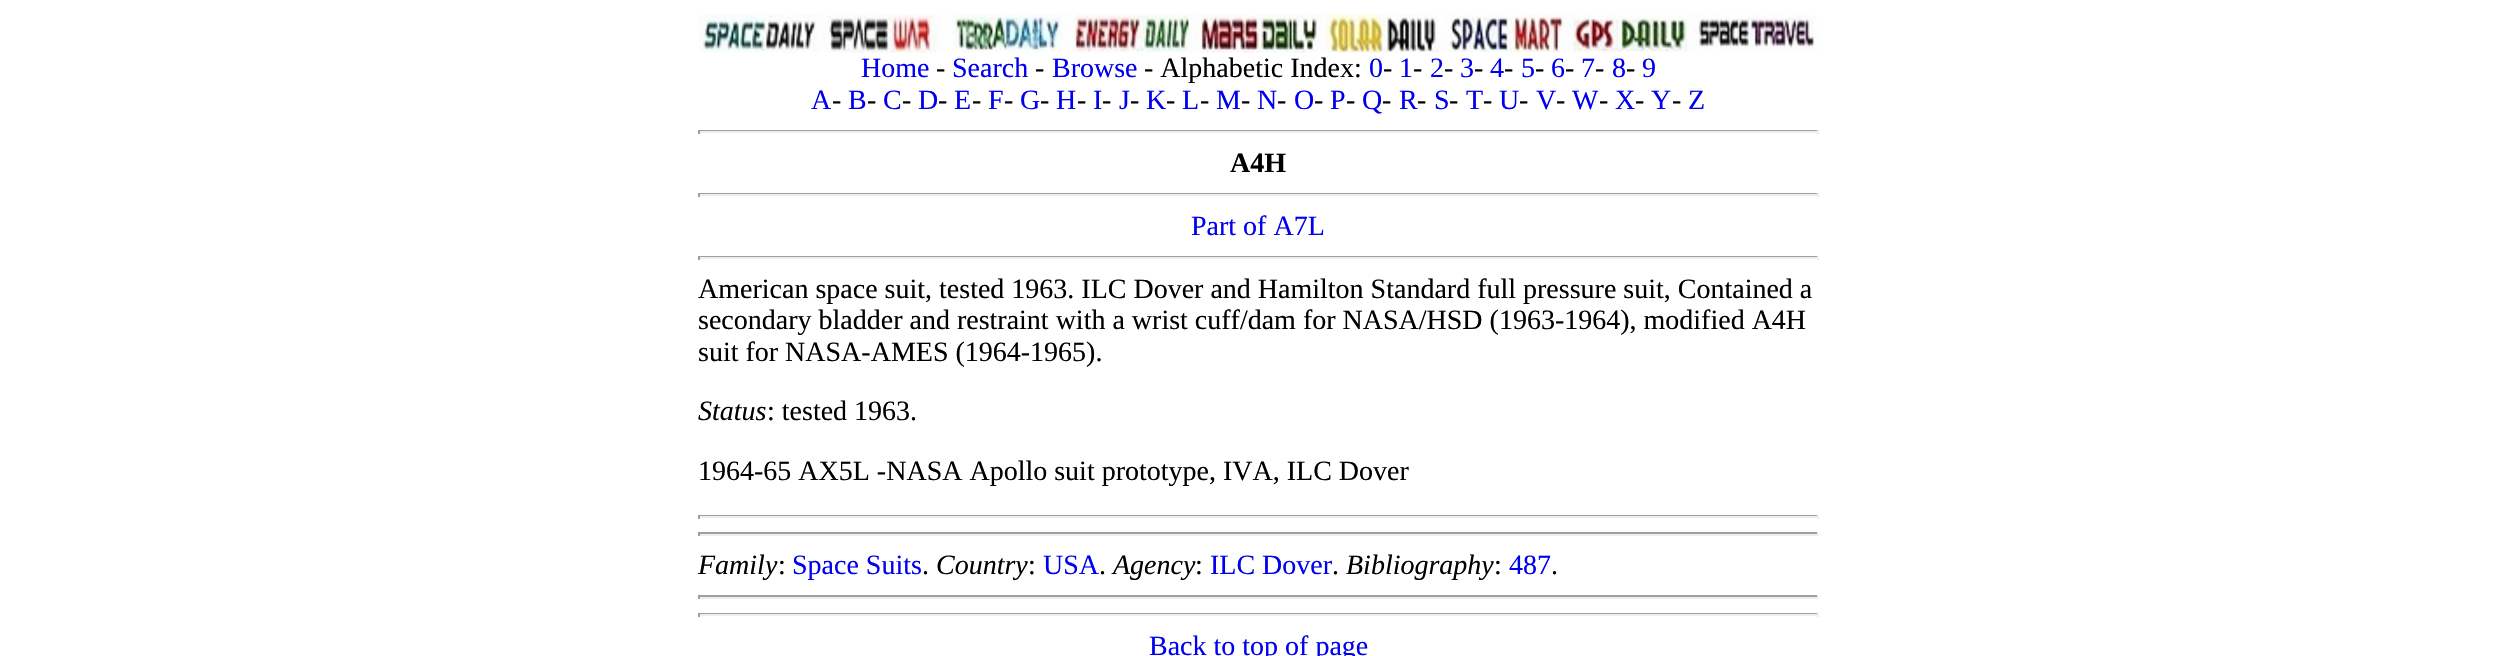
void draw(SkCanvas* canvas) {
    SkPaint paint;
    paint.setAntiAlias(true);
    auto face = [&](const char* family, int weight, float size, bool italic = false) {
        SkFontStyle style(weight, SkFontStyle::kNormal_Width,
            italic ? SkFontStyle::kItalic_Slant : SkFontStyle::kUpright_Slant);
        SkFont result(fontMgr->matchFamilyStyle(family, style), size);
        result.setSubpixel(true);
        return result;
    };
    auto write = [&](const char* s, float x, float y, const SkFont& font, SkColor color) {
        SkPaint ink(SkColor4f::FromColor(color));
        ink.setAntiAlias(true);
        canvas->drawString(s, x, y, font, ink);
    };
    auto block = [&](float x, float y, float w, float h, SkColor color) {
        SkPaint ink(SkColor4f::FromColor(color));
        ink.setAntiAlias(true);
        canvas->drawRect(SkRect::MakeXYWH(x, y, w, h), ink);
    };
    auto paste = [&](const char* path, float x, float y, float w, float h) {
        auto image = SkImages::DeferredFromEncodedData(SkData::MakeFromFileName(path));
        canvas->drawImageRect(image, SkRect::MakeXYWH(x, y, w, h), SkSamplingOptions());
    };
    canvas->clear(SK_ColorWHITE);
    paste("pic1.png", 698, 14, 1120, 39);
    auto kFont1 = face("Liberation Serif", 400, 28);
    write("Home", 861, 77, kFont1, SkColorSetRGB(0, 0, 238));
    write("-", 936, 77, kFont1, SK_ColorBLACK);
    write("Search", 952, 77, kFont1, SkColorSetRGB(0, 0, 238));
    write("-", 1035, 77, kFont1, SK_ColorBLACK);
    write("Browse", 1052, 77, kFont1, SkColorSetRGB(0, 0, 238));
    write("- Alphabetic Index:", 1144, 77, kFont1, SK_ColorBLACK);
    write("0", 1369, 77, kFont1, SkColorSetRGB(0, 0, 238));
    write("-", 1383, 77, kFont1, SK_ColorBLACK);
    write("1", 1399, 77, kFont1, SkColorSetRGB(0, 0, 238));
    write("-", 1413, 77, kFont1, SK_ColorBLACK);
    write("2", 1430, 77, kFont1, SkColorSetRGB(0, 0, 238));
    write("-", 1444, 77, kFont1, SK_ColorBLACK);
    write("3", 1460, 77, kFont1, SkColorSetRGB(0, 0, 238));
    write("-", 1474, 77, kFont1, SK_ColorBLACK);
    write("4", 1490, 77, kFont1, SkColorSetRGB(0, 0, 238));
    write("-", 1504, 77, kFont1, SK_ColorBLACK);
    write("5", 1521, 77, kFont1, SkColorSetRGB(0, 0, 238));
    write("-", 1535, 77, kFont1, SK_ColorBLACK);
    write("6", 1551, 77, kFont1, SkColorSetRGB(0, 0, 238));
    write("-", 1565, 77, kFont1, SK_ColorBLACK);
    write("7", 1581, 77, kFont1, SkColorSetRGB(0, 0, 238));
    write("-", 1595, 77, kFont1, SK_ColorBLACK);
    write("8", 1612, 77, kFont1, SkColorSetRGB(0, 0, 238));
    write("-", 1626, 77, kFont1, SK_ColorBLACK);
    write("9", 1642, 77, kFont1, SkColorSetRGB(0, 0, 238));
    write("A", 811, 109, kFont1, SkColorSetRGB(0, 0, 238));
    write("-", 832, 109, kFont1, SK_ColorBLACK);
    write("B", 848, 109, kFont1, SkColorSetRGB(0, 0, 238));
    write("-", 867, 109, kFont1, SK_ColorBLACK);
    write("C", 883, 109, kFont1, SkColorSetRGB(0, 0, 238));
    write("-", 902, 109, kFont1, SK_ColorBLACK);
    write("D", 918, 109, kFont1, SkColorSetRGB(0, 0, 238));
    write("-", 938, 109, kFont1, SK_ColorBLACK);
    write("E", 954, 109, kFont1, SkColorSetRGB(0, 0, 238));
    write("-", 972, 109, kFont1, SK_ColorBLACK);
    write("F", 988, 109, kFont1, SkColorSetRGB(0, 0, 238));
    write("-", 1004, 109, kFont1, SK_ColorBLACK);
    write("G", 1020, 109, kFont1, SkColorSetRGB(0, 0, 238));
    write("-", 1040, 109, kFont1, SK_ColorBLACK);
    write("H", 1056, 109, kFont1, SkColorSetRGB(0, 0, 238));
    write("-", 1077, 109, kFont1, SK_ColorBLACK);
    write("I", 1093, 109, kFont1, SkColorSetRGB(0, 0, 238));
    write("-", 1102, 109, kFont1, SK_ColorBLACK);
    write("J", 1119, 109, kFont1, SkColorSetRGB(0, 0, 238));
    write("-", 1130, 109, kFont1, SK_ColorBLACK);
    write("K", 1146, 109, kFont1, SkColorSetRGB(0, 0, 238));
    write("-", 1166, 109, kFont1, SK_ColorBLACK);
    write("L", 1182, 109, kFont1, SkColorSetRGB(0, 0, 238));
    write("-", 1200, 109, kFont1, SK_ColorBLACK);
    write("M", 1216, 109, kFont1, SkColorSetRGB(0, 0, 238));
    write("-", 1241, 109, kFont1, SK_ColorBLACK);
    write("N", 1257, 109, kFont1, SkColorSetRGB(0, 0, 238));
    write("-", 1277, 109, kFont1, SK_ColorBLACK);
    write("O", 1294, 109, kFont1, SkColorSetRGB(0, 0, 238));
    write("-", 1314, 109, kFont1, SK_ColorBLACK);
    write("P", 1330, 109, kFont1, SkColorSetRGB(0, 0, 238));
    write("-", 1346, 109, kFont1, SK_ColorBLACK);
    write("Q", 1362, 109, kFont1, SkColorSetRGB(0, 0, 238));
    write("-", 1382, 109, kFont1, SK_ColorBLACK);
    write("R", 1399, 109, kFont1, SkColorSetRGB(0, 0, 238));
    write("-", 1417, 109, kFont1, SK_ColorBLACK);
    write("S", 1434, 109, kFont1, SkColorSetRGB(0, 0, 238));
    write("-", 1449, 109, kFont1, SK_ColorBLACK);
    write("T", 1466, 109, kFont1, SkColorSetRGB(0, 0, 238));
    write("-", 1483, 109, kFont1, SK_ColorBLACK);
    write("U", 1499, 109, kFont1, SkColorSetRGB(0, 0, 238));
    write("-", 1519, 109, kFont1, SK_ColorBLACK);
    write("V", 1536, 109, kFont1, SkColorSetRGB(0, 0, 238));
    write("-", 1556, 109, kFont1, SK_ColorBLACK);
    write("W", 1572, 109, kFont1, SkColorSetRGB(0, 0, 238));
    write("-", 1599, 109, kFont1, SK_ColorBLACK);
    write("X", 1615, 109, kFont1, SkColorSetRGB(0, 0, 238));
    write("-", 1635, 109, kFont1, SK_ColorBLACK);
    write("Y", 1651, 109, kFont1, SkColorSetRGB(0, 0, 238));
    write("-", 1672, 109, kFont1, SK_ColorBLACK);
    write("Z", 1688, 109, kFont1, SkColorSetRGB(0, 0, 238));
    block(698, 130, 1120, 1, SkColorSetRGB(159, 159, 159));
    block(1817, 130, 2, 4, SkColorSetRGB(238, 238, 238));
    block(698, 131, 1120, 2, SkColorSetRGB(238, 238, 238));
    block(698, 130, 2, 4, SkColorSetRGB(159, 159, 159));
    auto kFont2 = face("Liberation Serif", 700, 28);
    write("A4H", 1230, 172, kFont2, SK_ColorBLACK);
    block(698, 193, 1120, 1, SkColorSetRGB(159, 159, 159));
    block(1817, 193, 2, 4, SkColorSetRGB(238, 238, 238));
    block(698, 194, 1120, 2, SkColorSetRGB(238, 238, 238));
    block(698, 193, 2, 4, SkColorSetRGB(159, 159, 159));
    write("Part of A7L", 1191, 235, kFont1, SkColorSetRGB(0, 0, 238));
    block(698, 256, 1120, 1, SkColorSetRGB(159, 159, 159));
    block(1817, 256, 2, 4, SkColorSetRGB(238, 238, 238));
    block(698, 257, 1120, 2, SkColorSetRGB(238, 238, 238));
    block(698, 256, 2, 4, SkColorSetRGB(159, 159, 159));
    write("American space suit, tested 1963. ILC Dover and Hamilton Standard full pressure suit, Contained a", 698, 298, kFont1, SK_ColorBLACK);
    write("secondary bladder and restraint with a wrist cuff/dam for NASA/HSD (1963-1964), modified A4H", 698, 329, kFont1, SK_ColorBLACK);
    write("suit for NASA-AMES (1964-1965).", 698, 361, kFont1, SK_ColorBLACK);
    auto kFont3 = face("Liberation Serif", 400, 28, true);
    write("Status", 698, 420, kFont3, SK_ColorBLACK);
    write(": tested 1963.", 767, 420, kFont1, SK_ColorBLACK);
    write("1964-65 AX5L -NASA Apollo suit prototype, IVA, ILC Dover", 698, 480, kFont1, SK_ColorBLACK);
    block(698, 515, 1120, 1, SkColorSetRGB(159, 159, 159));
    block(1817, 515, 2, 4, SkColorSetRGB(238, 238, 238));
    block(698, 516, 1120, 2, SkColorSetRGB(238, 238, 238));
    block(698, 515, 2, 4, SkColorSetRGB(159, 159, 159));
    block(698, 532, 1120, 2, SkColorSetRGB(159, 159, 159));
    block(1817, 532, 2, 4, SkColorSetRGB(238, 238, 238));
    block(698, 534, 1120, 2, SkColorSetRGB(238, 238, 238));
    block(698, 532, 2, 4, SkColorSetRGB(159, 159, 159));
    write("Family", 698, 574, kFont3, SK_ColorBLACK);
    write(":", 778, 574, kFont1, SK_ColorBLACK);
    write("Space Suits", 792, 574, kFont1, SkColorSetRGB(0, 0, 238));
    write(".", 922, 574, kFont1, SK_ColorBLACK);
    write("Country", 936, 574, kFont3, SK_ColorBLACK);
    write(":", 1028, 574, kFont1, SK_ColorBLACK);
    write("USA", 1043, 574, kFont1, SkColorSetRGB(0, 0, 238));
    write(".", 1099, 574, kFont1, SK_ColorBLACK);
    write("Agency", 1113, 574, kFont3, SK_ColorBLACK);
    write(":", 1195, 574, kFont1, SK_ColorBLACK);
    write("ILC Dover", 1210, 574, kFont1, SkColorSetRGB(0, 0, 238));
    write(".", 1332, 574, kFont1, SK_ColorBLACK);
    write("Bibliography", 1346, 574, kFont3, SK_ColorBLACK);
    write(":", 1494, 574, kFont1, SK_ColorBLACK);
    write("487", 1509, 574, kFont1, SkColorSetRGB(0, 0, 238));
    write(".", 1551, 574, kFont1, SK_ColorBLACK);
    block(698, 595, 1120, 2, SkColorSetRGB(159, 159, 159));
    block(1817, 595, 2, 4, SkColorSetRGB(238, 238, 238));
    block(698, 597, 1120, 2, SkColorSetRGB(238, 238, 238));
    block(698, 595, 2, 4, SkColorSetRGB(159, 159, 159));
    block(698, 613, 1120, 1, SkColorSetRGB(159, 159, 159));
    block(1817, 613, 2, 4, SkColorSetRGB(238, 238, 238));
    block(698, 614, 1120, 2, SkColorSetRGB(238, 238, 238));
    block(698, 613, 2, 4, SkColorSetRGB(159, 159, 159));
    write("Back to top of page", 1149, 655, kFont1, SkColorSetRGB(0, 0, 238));
}
